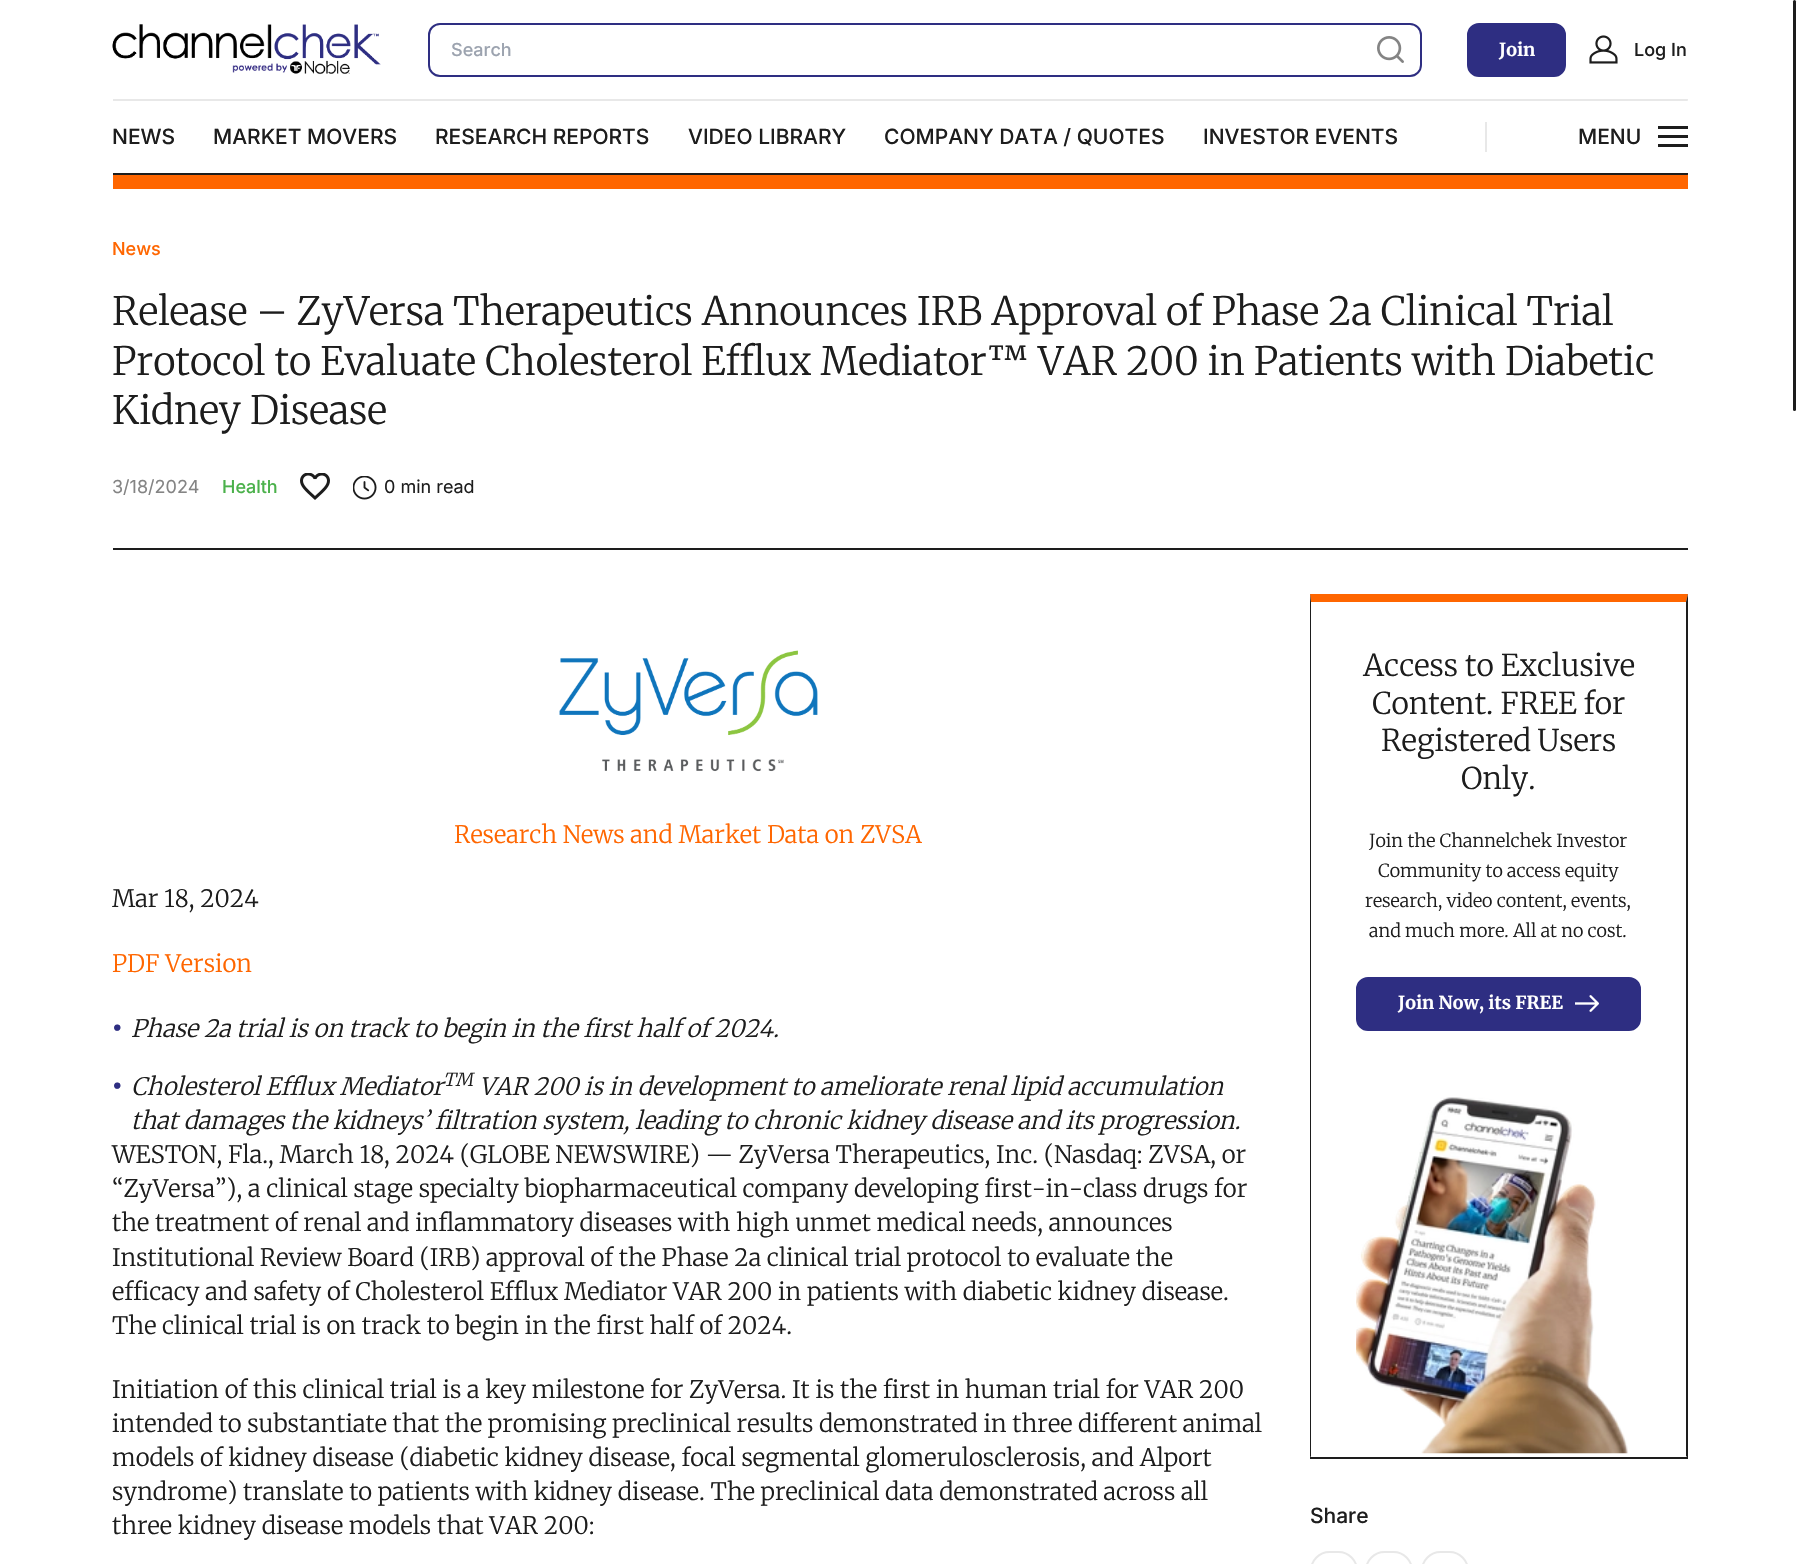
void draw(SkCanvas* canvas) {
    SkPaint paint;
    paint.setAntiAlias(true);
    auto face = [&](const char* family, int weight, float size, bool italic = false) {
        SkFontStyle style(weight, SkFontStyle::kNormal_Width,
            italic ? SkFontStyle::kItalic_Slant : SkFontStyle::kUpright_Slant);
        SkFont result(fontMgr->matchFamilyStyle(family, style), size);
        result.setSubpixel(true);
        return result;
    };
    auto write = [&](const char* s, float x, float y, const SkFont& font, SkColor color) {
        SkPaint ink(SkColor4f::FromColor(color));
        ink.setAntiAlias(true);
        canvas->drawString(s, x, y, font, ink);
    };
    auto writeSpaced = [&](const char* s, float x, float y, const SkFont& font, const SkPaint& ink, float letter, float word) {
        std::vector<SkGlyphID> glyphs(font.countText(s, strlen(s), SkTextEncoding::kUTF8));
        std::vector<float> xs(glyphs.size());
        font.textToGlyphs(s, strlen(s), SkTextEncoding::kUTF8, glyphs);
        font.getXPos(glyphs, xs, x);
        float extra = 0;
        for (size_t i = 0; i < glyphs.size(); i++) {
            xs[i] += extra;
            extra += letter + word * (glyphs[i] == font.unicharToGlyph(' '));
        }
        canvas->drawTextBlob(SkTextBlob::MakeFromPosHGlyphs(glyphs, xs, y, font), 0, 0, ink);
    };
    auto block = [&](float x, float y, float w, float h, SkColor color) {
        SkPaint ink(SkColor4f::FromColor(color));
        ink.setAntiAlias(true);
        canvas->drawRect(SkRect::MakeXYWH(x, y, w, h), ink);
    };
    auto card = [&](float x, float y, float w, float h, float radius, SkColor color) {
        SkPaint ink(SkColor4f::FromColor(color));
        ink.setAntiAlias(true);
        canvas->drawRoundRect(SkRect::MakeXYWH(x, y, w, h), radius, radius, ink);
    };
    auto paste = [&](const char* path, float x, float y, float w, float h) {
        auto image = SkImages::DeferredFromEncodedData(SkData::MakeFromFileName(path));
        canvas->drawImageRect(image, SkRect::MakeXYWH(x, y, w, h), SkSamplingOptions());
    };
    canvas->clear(SK_ColorWHITE);
    paste("pic1.png", 112, 24, 269, 51);
    paint.setStyle(SkPaint::kStroke_Style);
    paint.setStrokeWidth(2);
    paint.setColor(SkColorSetRGB(46, 46, 130));
    canvas->drawRoundRect(SkRect::MakeXYWH(429, 24, 992, 52), 11, 11, paint);
    auto kFont1 = face("Inter", 500, 18);
    write("Search", 451, 56, kFont1, SkColorSetRGB(156, 163, 175));
    paste("pic2.png", 1377, 36, 27, 27);
    block(113, 99, 1575, 2, SkColorSetRGB(232, 232, 232));
    paint.setStyle(SkPaint::kFill_Style);
    paint.setColor(SK_ColorWHITE);
    canvas->drawPath(SkPathBuilder().moveTo(1687.5f, 99).lineTo(1687.5f, 108).lineTo(1686, 106.5f).close().detach(), paint);
    paint.setColor(SkColorSetRGB(46, 46, 130));
    canvas->drawRoundRect(SkRect::MakeXYWH(1468, 24, 97, 52), 11, 11, paint);
    paint.setStyle(SkPaint::kStroke_Style);
    canvas->drawRoundRect(SkRect::MakeXYWH(1468, 24, 97, 52), 11, 11, paint);
    auto kFont2 = face("Merriweather", 700, 18);
    write("Join", 1499, 56, kFont2, SK_ColorWHITE);
    paste("pic3.png", 1589, 35, 29, 29);
    write("Log In", 1634, 56, kFont1, SkColorSetRGB(29, 29, 29));
    block(113, 173, 1575, 2, SkColorSetRGB(29, 29, 29));
    auto kFont3 = face("Inter", 500, 21);
    write("NEWS", 112, 144, kFont3, SkColorSetRGB(29, 29, 29));
    write("MARKET MOVERS", 213, 144, kFont3, SkColorSetRGB(29, 29, 29));
    write("RESEARCH REPORTS", 435, 144, kFont3, SkColorSetRGB(29, 29, 29));
    write("VIDEO LIBRARY", 688, 144, kFont3, SkColorSetRGB(29, 29, 29));
    write("COMPANY DATA / QUOTES", 884, 144, kFont3, SkColorSetRGB(29, 29, 29));
    write("INVESTOR EVENTS", 1203, 144, kFont3, SkColorSetRGB(29, 29, 29));
    block(1485, 122, 2, 30, SkColorSetRGB(232, 232, 232));
    write("MENU", 1578, 144, kFont3, SkColorSetRGB(29, 29, 29));
    block(1658, 126, 30, 3, SkColorSetRGB(29, 29, 29));
    block(1658, 135, 30, 3, SkColorSetRGB(29, 29, 29));
    block(1658, 144, 30, 3, SkColorSetRGB(29, 29, 29));
    block(113, 175, 1575, 14, SkColorSetRGB(255, 102, 0));
    paint.setStyle(SkPaint::kFill_Style);
    paint.setColor(SkColorSetRGB(255, 102, 0));
    canvas->drawPath(SkPathBuilder().moveTo(1687.5f, 174).lineTo(1687.5f, 183).lineTo(1686, 181.5f).close().detach(), paint);
    card(1793, 0, 3, 411, 1.5f, SkColorSetRGB(29, 29, 29));
    block(113, 548, 1575, 2, SkColorSetRGB(29, 29, 29));
    write("News", 112, 255, kFont1, SkColorSetRGB(255, 102, 0));
    auto kFont4 = face("Merriweather", 300, 39);
    write("Release – ZyVersa Therapeutics Announces IRB Approval of Phase 2a Clinical Trial", 112, 325, kFont4, SkColorSetRGB(29, 29, 29));
    write("Protocol to Evaluate Cholesterol Efflux Mediator™ VAR 200 in Patients with Diabetic", 112, 375, kFont4, SkColorSetRGB(29, 29, 29));
    write("Kidney Disease", 112, 424, kFont4, SkColorSetRGB(29, 29, 29));
    auto kFont5 = face("Inter", 400, 18);
    write("3/18/2024", 112, 493, kFont5, SkColorSetRGB(132, 132, 132));
    write("Health", 222, 493, kFont1, SkColorSetRGB(75, 177, 75));
    paste("pic4.png", 300, 473, 30, 27);
    paste("pic5.png", 353, 476, 24, 24);
    write("0 min read", 384, 493, kFont5, SkColorSetRGB(29, 29, 29));
    paste("pic6.png", 559, 650, 259, 122);
    auto kFont6 = face("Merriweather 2", 300, 24);
    write("Research News and Market Data on ZVSA", 454, 843, kFont6, SkColorSetRGB(255, 102, 0));
    write("Mar 18, 2024", 112, 907, kFont6, SkColorSetRGB(29, 29, 29));
    write("PDF Version", 112, 972, kFont6, SkColorSetRGB(255, 102, 0));
    auto kFont7 = face("Merriweather", 700, 28);
    write("•", 111, 1037, kFont7, SkColorSetRGB(46, 46, 130));
    auto kFont8 = face("Merriweather", 300, 24, true);
    write("Phase 2a trial is on track to begin in the first half of 2024.", 131, 1037, kFont8, SkColorSetRGB(29, 29, 29));
    write("•", 111, 1095, kFont7, SkColorSetRGB(46, 46, 130));
    write("Cholesterol Efflux Mediator", 131, 1095, kFont8, SkColorSetRGB(29, 29, 29));
    auto kFont9 = face("Merriweather", 300, 18, true);
    write("TM", 443, 1086, kFont9, SkColorSetRGB(29, 29, 29));
    write("VAR 200 is in development to ameliorate renal lipid accumulation", 479, 1095, kFont8, SkColorSetRGB(29, 29, 29));
    write("that damages the kidneys’ filtration system, leading to chronic kidney disease and its progression.", 131, 1129, kFont8, SkColorSetRGB(29, 29, 29));
    write("WESTON, Fla., March 18, 2024 (GLOBE NEWSWIRE) — ZyVersa Therapeutics, Inc. (Nasdaq: ZVSA, or", 112, 1163, kFont6, SkColorSetRGB(29, 29, 29));
    write("“ZyVersa”), a clinical stage specialty biopharmaceutical company developing first-in-class drugs for", 112, 1197, kFont6, SkColorSetRGB(29, 29, 29));
    write("the treatment of renal and inflammatory diseases with high unmet medical needs, announces", 112, 1231, kFont6, SkColorSetRGB(29, 29, 29));
    write("Institutional Review Board (IRB) approval of the Phase 2a clinical trial protocol to evaluate the", 112, 1266, kFont6, SkColorSetRGB(29, 29, 29));
    write("efficacy and safety of Cholesterol Efflux Mediator VAR 200 in patients with diabetic kidney disease.", 112, 1300, kFont6, SkColorSetRGB(29, 29, 29));
    write("The clinical trial is on track to begin in the first half of 2024.", 112, 1334, kFont6, SkColorSetRGB(29, 29, 29));
    write("Initiation of this clinical trial is a key milestone for ZyVersa. It is the first in human trial for VAR 200", 112, 1398, kFont6, SkColorSetRGB(29, 29, 29));
    write("intended to substantiate that the promising preclinical results demonstrated in three different animal", 112, 1432, kFont6, SkColorSetRGB(29, 29, 29));
    write("models of kidney disease (diabetic kidney disease, focal segmental glomerulosclerosis, and Alport", 112, 1466, kFont6, SkColorSetRGB(29, 29, 29));
    write("syndrome) translate to patients with kidney disease. The preclinical data demonstrated across all", 112, 1500, kFont6, SkColorSetRGB(29, 29, 29));
    write("three kidney disease models that VAR 200:", 112, 1534, kFont6, SkColorSetRGB(29, 29, 29));
    canvas->drawPath(SkPathBuilder().moveTo(1310, 594).lineTo(1688, 594).lineTo(1686, 602).lineTo(1311, 602).close().detach(), paint);
    paint.setColor(SkColorSetRGB(29, 29, 29));
    canvas->drawPath(SkPathBuilder().moveTo(1688, 594).lineTo(1688, 1458).lineTo(1686, 1456).lineTo(1686, 602).close().detach(), paint);
    block(1310, 1457, 378, 2, SkColorSetRGB(29, 29, 29));
    canvas->drawPath(SkPathBuilder().moveTo(1310, 1458).lineTo(1310, 594).lineTo(1311, 602).lineTo(1311, 1456).close().detach(), paint);
    auto kFont10 = face("Merriweather 2", 300, 30);
    write("Access to Exclusive", 1363, 676, kFont10, SkColorSetRGB(29, 29, 29));
    write("Content. FREE for", 1372, 714, kFont10, SkColorSetRGB(29, 29, 29));
    writeSpaced("Registered Users", 1381, 751, kFont10, paint, 0, -1);
    write("Only.", 1461, 789, kFont10, SkColorSetRGB(29, 29, 29));
    auto kFont11 = face("Merriweather 2", 300, 18);
    write("Join the Channelchek Investor", 1369, 847, kFont11, SkColorSetRGB(29, 29, 29));
    write("Community to access equity", 1378, 877, kFont11, SkColorSetRGB(29, 29, 29));
    write("research, video content, events,", 1365, 907, kFont11, SkColorSetRGB(29, 29, 29));
    write("and much more. All at no cost.", 1369, 937, kFont11, SkColorSetRGB(29, 29, 29));
    paint.setColor(SkColorSetRGB(46, 46, 130));
    canvas->drawRoundRect(SkRect::MakeXYWH(1357, 978, 283, 52), 11, 11, paint);
    paint.setStyle(SkPaint::kStroke_Style);
    canvas->drawRoundRect(SkRect::MakeXYWH(1357, 978, 283, 52), 11, 11, paint);
    write("Join Now, its FREE", 1398, 1009, kFont2, SK_ColorWHITE);
    paste("pic7.png", 1575, 995, 24, 17);
    paste("pic8.png", 1356, 1097, 273, 357);
    write("Share", 1310, 1523, kFont3, SkColorSetRGB(29, 29, 29));
    paint.setColor(SkColorSetRGB(232, 232, 232));
    canvas->drawRoundRect(SkRect::MakeXYWH(1311, 1552, 46, 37), 23, 23, paint);
    canvas->drawRoundRect(SkRect::MakeXYWH(1366, 1552, 46, 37), 23, 23, paint);
    canvas->drawRoundRect(SkRect::MakeXYWH(1422, 1552, 46, 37), 23, 23, paint);
}
